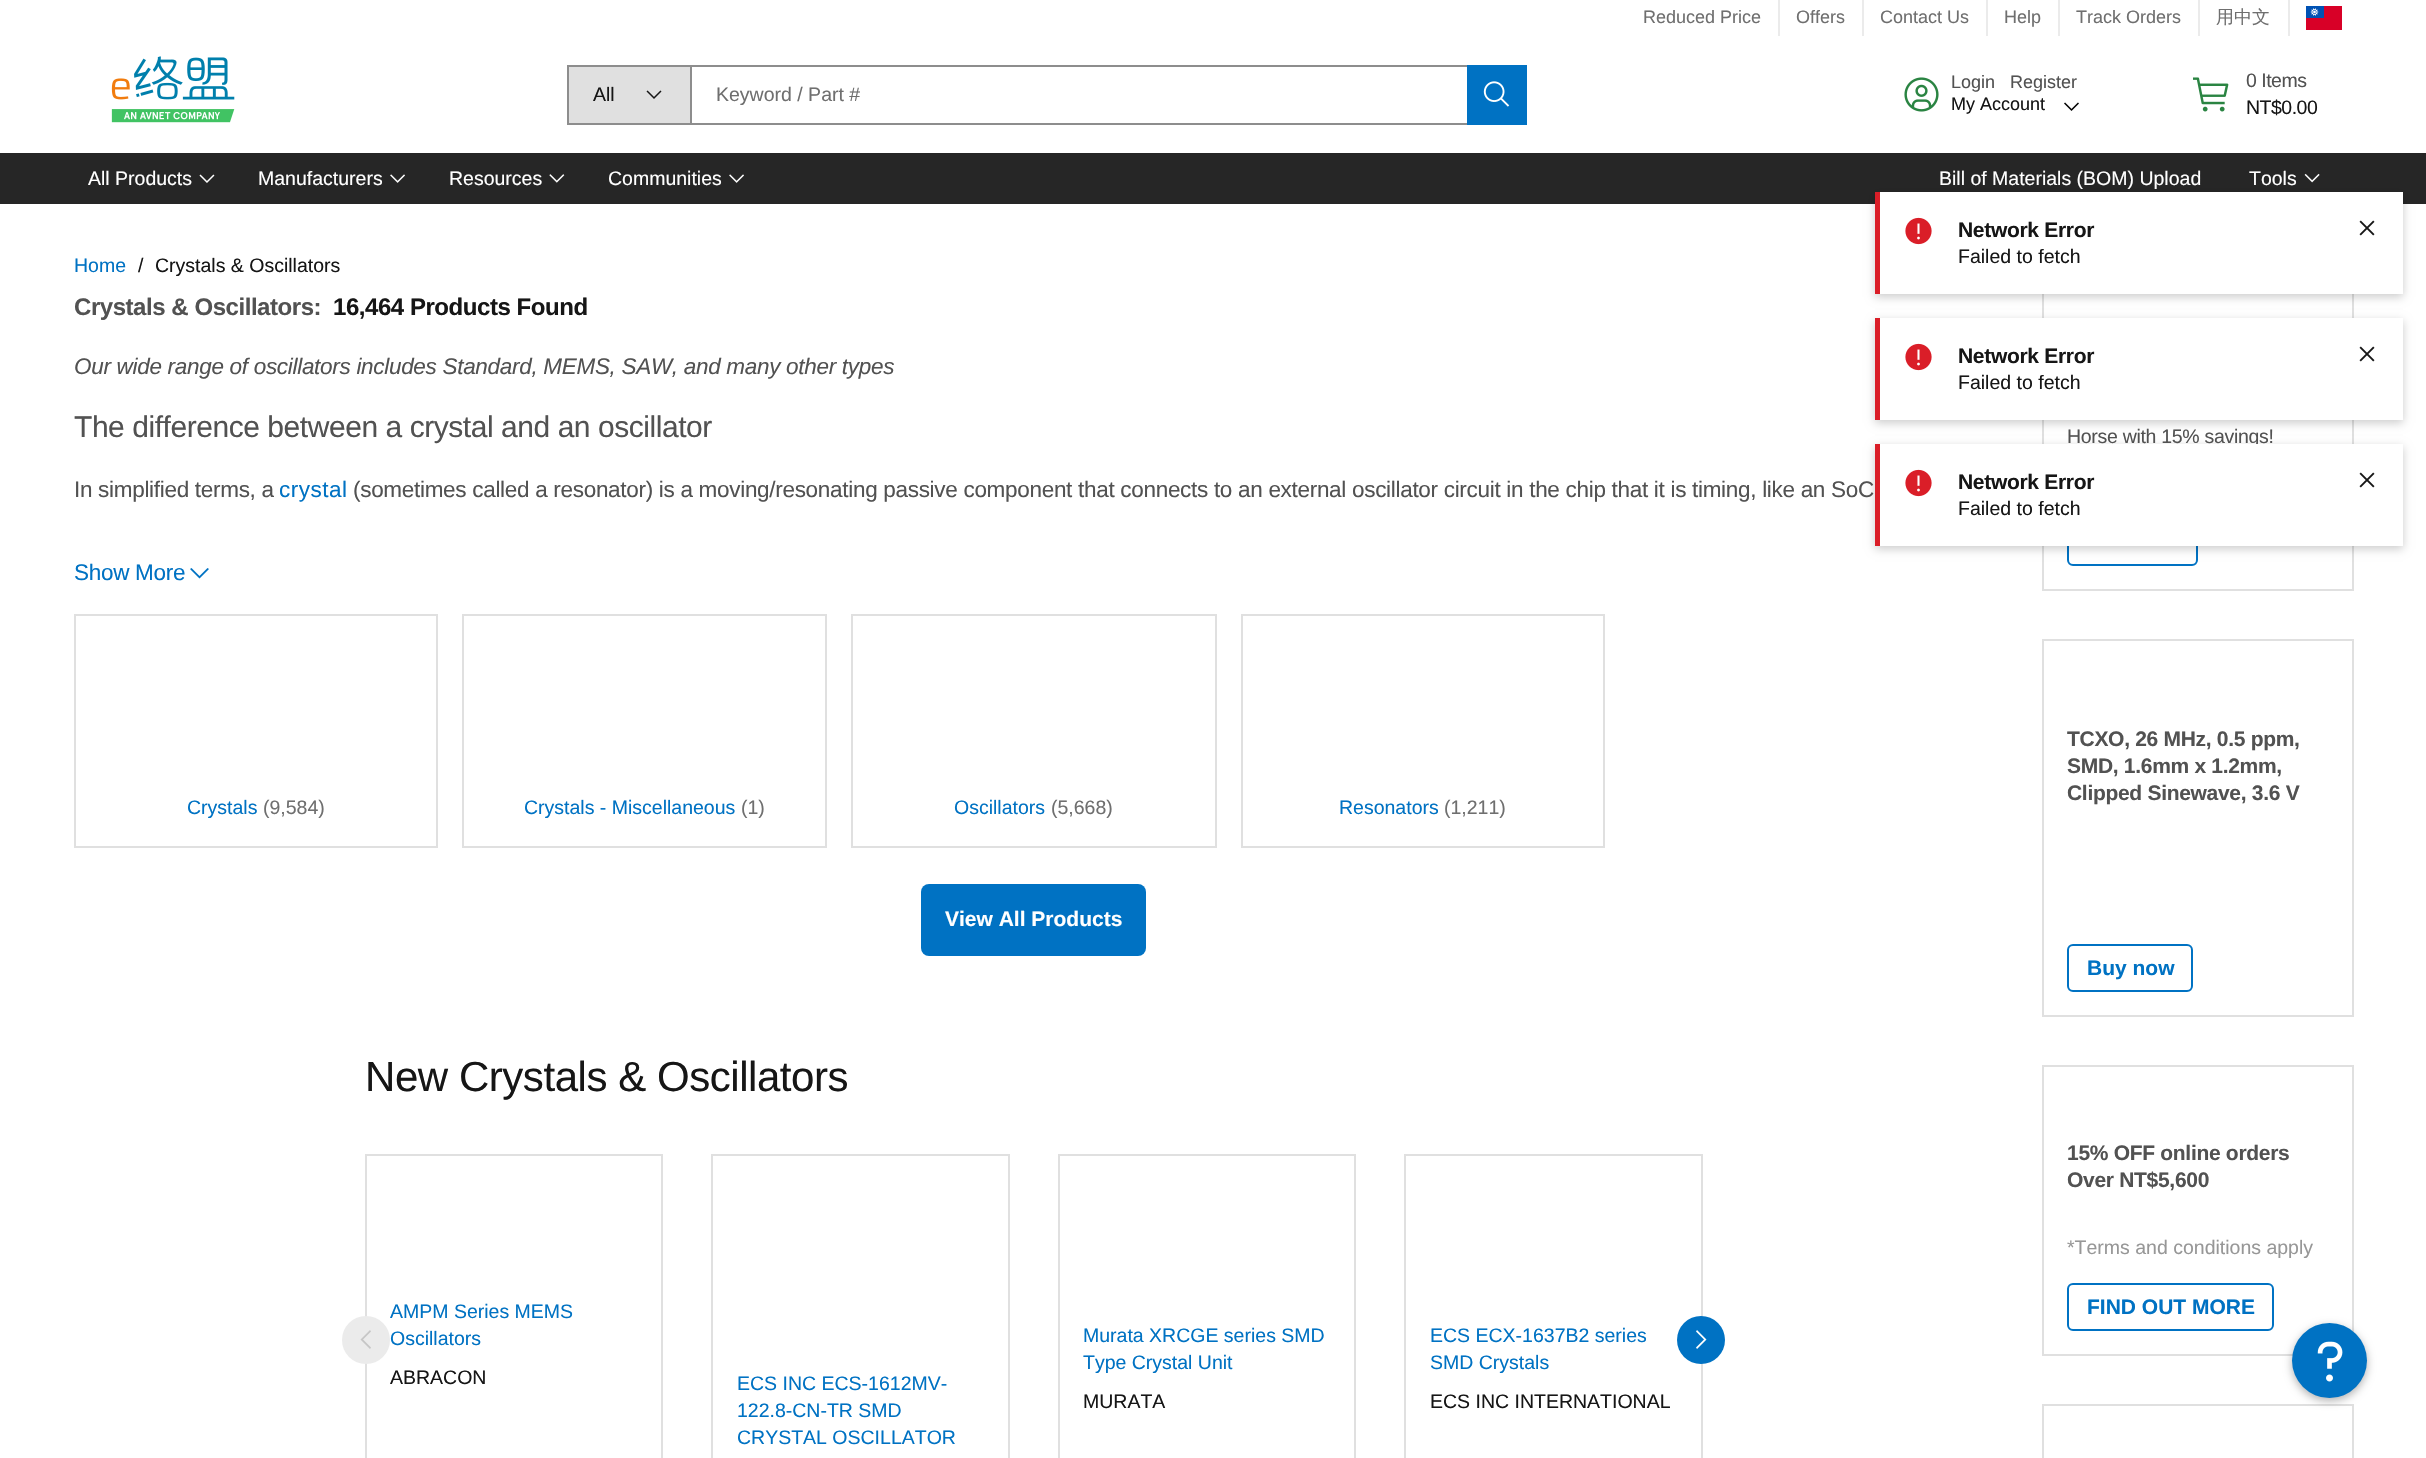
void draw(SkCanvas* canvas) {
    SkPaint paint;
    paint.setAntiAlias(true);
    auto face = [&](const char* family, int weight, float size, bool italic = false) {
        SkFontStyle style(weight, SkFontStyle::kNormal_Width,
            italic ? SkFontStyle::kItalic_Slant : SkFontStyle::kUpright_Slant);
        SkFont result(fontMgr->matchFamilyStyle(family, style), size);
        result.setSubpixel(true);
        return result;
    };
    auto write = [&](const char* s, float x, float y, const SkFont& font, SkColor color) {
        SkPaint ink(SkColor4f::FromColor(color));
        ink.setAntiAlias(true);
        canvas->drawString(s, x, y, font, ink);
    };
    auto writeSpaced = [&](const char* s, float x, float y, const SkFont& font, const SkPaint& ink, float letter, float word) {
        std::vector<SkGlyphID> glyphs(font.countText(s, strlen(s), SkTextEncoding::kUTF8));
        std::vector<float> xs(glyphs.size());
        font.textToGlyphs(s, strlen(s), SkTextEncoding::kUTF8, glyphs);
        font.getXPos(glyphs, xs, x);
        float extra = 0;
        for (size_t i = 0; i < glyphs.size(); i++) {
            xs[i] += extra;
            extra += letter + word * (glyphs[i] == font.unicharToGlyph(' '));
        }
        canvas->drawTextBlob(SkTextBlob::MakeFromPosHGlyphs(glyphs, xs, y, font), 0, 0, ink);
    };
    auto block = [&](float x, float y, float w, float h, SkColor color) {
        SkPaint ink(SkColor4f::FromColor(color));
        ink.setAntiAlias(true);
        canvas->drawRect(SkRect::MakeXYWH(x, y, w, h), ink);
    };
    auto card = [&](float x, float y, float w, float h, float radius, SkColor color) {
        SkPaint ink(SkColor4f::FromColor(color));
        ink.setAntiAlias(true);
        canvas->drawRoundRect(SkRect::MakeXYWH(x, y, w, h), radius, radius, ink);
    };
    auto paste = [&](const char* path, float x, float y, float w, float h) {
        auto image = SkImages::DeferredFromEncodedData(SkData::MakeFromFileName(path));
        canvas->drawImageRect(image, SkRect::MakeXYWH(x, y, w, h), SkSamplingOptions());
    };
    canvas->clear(SK_ColorWHITE);
    block(1778, 0, 2, 36, SkColorSetRGB(235, 235, 235));
    auto kFont1 = face("Liberation Sans", 400, 18);
    write("Reduced Price", 1643, 23, kFont1, SkColorSetRGB(111, 111, 111));
    block(1862, 0, 2, 36, SkColorSetRGB(235, 235, 235));
    write("Offers", 1796, 23, kFont1, SkColorSetRGB(111, 111, 111));
    block(1986, 0, 2, 36, SkColorSetRGB(235, 235, 235));
    write("Contact Us", 1880, 23, kFont1, SkColorSetRGB(111, 111, 111));
    block(2058, 0, 2, 36, SkColorSetRGB(235, 235, 235));
    write("Help", 2004, 23, kFont1, SkColorSetRGB(111, 111, 111));
    block(2198, 0, 2, 36, SkColorSetRGB(235, 235, 235));
    write("Track Orders", 2076, 23, kFont1, SkColorSetRGB(111, 111, 111));
    block(2288, 0, 2, 36, SkColorSetRGB(235, 235, 235));
    auto kFont2 = face("WenQuanYi Zen Hei", 500, 18);
    write("用中文", 2216, 23, kFont2, SkColorSetRGB(111, 111, 111));
    paste("pic1.png", 2306, 6, 36, 24);
    paste("pic2.png", 111, 56, 124, 67);
    block(569, 67, 121, 56, SkColorSetRGB(224, 224, 224));
    block(567, 65, 900, 2, SkColorSetRGB(141, 141, 141));
    block(567, 123, 900, 2, SkColorSetRGB(141, 141, 141));
    block(567, 65, 2, 60, SkColorSetRGB(141, 141, 141));
    auto kFont3 = face("Liberation Sans", 400, 19.5f);
    write("All", 593, 101, kFont3, SkColorSetRGB(22, 22, 22));
    paste("pic3.png", 646, 90, 16, 9);
    block(690, 65, 2, 60, SkColorSetRGB(141, 141, 141));
    write("Keyword / Part #", 716, 101, kFont3, SkColorSetRGB(111, 111, 111));
    block(1467, 65, 60, 60, SkColorSetRGB(0, 114, 195));
    paste("pic4.png", 1483, 81, 27, 26);
    paste("pic5.png", 1904, 77, 35, 35);
    write("Login", 1951, 88, kFont1, SkColorSetRGB(82, 82, 82));
    write("Register", 2010, 88, kFont1, SkColorSetRGB(82, 82, 82));
    write("My Account", 1951, 110, kFont1, SkColorSetRGB(22, 22, 22));
    paste("pic6.png", 2064, 102, 15, 9);
    paste("pic7.png", 2193, 77, 36, 35);
    paint.setColor(SkColorSetRGB(82, 82, 82));
    writeSpaced("0 Items", 2246, 87, kFont3, paint, -0.5f, 0);
    paint.setColor(SkColorSetRGB(22, 22, 22));
    writeSpaced("NT$0.00", 2246, 114, kFont3, paint, -0.5f, 0);
    block(0, 153, 2426, 51, SkColorSetRGB(38, 38, 38));
    write("All Products", 88, 185, kFont3, SK_ColorWHITE);
    paste("pic8.png", 199, 174, 16, 9);
    write("Manufacturers", 258, 185, kFont3, SK_ColorWHITE);
    paste("pic9.png", 390, 174, 15, 9);
    write("Resources", 449, 185, kFont3, SK_ColorWHITE);
    paste("pic10.png", 549, 174, 16, 9);
    write("Communities", 608, 185, kFont3, SK_ColorWHITE);
    paste("pic9.png", 729, 174, 15, 9);
    write("Bill of Materials (BOM) Upload", 1939, 185, kFont3, SK_ColorWHITE);
    write("Tools", 2249, 185, kFont3, SK_ColorWHITE);
    paste("pic11.png", 2304, 173, 16, 10);
    paint.setStyle(SkPaint::kStroke_Style);
    paint.setStrokeWidth(2);
    paint.setColor(SkColorSetRGB(224, 224, 224));
    canvas->drawRect(SkRect::MakeXYWH(2043, 253, 310, 337), paint);
    paint.setStyle(SkPaint::kFill_Style);
    paint.setColor(SkColorSetARGB(51, 0, 0, 0));
    paint.setMaskFilter(SkMaskFilter::MakeBlur(kNormal_SkBlurStyle, 4.5f));
    canvas->drawRect(SkRect::MakeXYWH(1875, 195, 528, 102), paint);
    paint.setMaskFilter(nullptr);
    block(1880, 192, 523, 102, SK_ColorWHITE);
    block(1875, 192, 5, 102, SkColorSetRGB(218, 30, 40));
    paste("pic12.png", 1905, 217, 27, 28);
    auto kFont4 = face("Liberation Sans", 700, 21);
    paint.setColor(SkColorSetRGB(22, 22, 22));
    writeSpaced("Network Error", 1958, 237, kFont4, paint, -0.3f, 0);
    write("Failed to fetch", 1958, 263, kFont3, SkColorSetRGB(22, 22, 22));
    paste("pic13.png", 2359, 220, 16, 16);
    paint.setColor(SkColorSetARGB(51, 0, 0, 0));
    paint.setMaskFilter(SkMaskFilter::MakeBlur(kNormal_SkBlurStyle, 4.5f));
    canvas->drawRect(SkRect::MakeXYWH(1875, 321, 528, 102), paint);
    paint.setMaskFilter(nullptr);
    block(1880, 318, 523, 102, SK_ColorWHITE);
    block(1875, 318, 5, 102, SkColorSetRGB(218, 30, 40));
    paste("pic12.png", 1905, 343, 27, 28);
    paint.setColor(SkColorSetRGB(22, 22, 22));
    writeSpaced("Network Error", 1958, 363, kFont4, paint, -0.3f, 0);
    write("Failed to fetch", 1958, 389, kFont3, SkColorSetRGB(22, 22, 22));
    paste("pic13.png", 2359, 346, 16, 16);
    paint.setStyle(SkPaint::kStroke_Style);
    paint.setColor(SkColorSetRGB(0, 114, 195));
    canvas->drawRoundRect(SkRect::MakeXYWH(2068, 519, 129, 46), 5, 5, paint);
    paint.setStyle(SkPaint::kFill_Style);
    paint.setColor(SkColorSetARGB(51, 0, 0, 0));
    paint.setMaskFilter(SkMaskFilter::MakeBlur(kNormal_SkBlurStyle, 4.5f));
    canvas->drawRect(SkRect::MakeXYWH(1875, 447, 528, 102), paint);
    paint.setMaskFilter(nullptr);
    paint.setColor(SkColorSetRGB(82, 82, 82));
    writeSpaced("Horse with 15% savings!", 2067, 443, kFont3, paint, -0.3f, 0);
    block(1880, 444, 523, 102, SK_ColorWHITE);
    block(1875, 444, 5, 102, SkColorSetRGB(218, 30, 40));
    paste("pic12.png", 1905, 469, 27, 28);
    paint.setColor(SkColorSetRGB(22, 22, 22));
    writeSpaced("Network Error", 1958, 489, kFont4, paint, -0.3f, 0);
    write("Failed to fetch", 1958, 515, kFont3, SkColorSetRGB(22, 22, 22));
    paste("pic13.png", 2359, 472, 16, 16);
    write("Home", 74, 272, kFont3, SkColorSetRGB(0, 114, 195));
    write("/", 138, 272, kFont3, SkColorSetRGB(22, 22, 22));
    write("Crystals & Oscillators", 155, 272, kFont3, SkColorSetRGB(22, 22, 22));
    auto kFont5 = face("Liberation Sans", 700, 24);
    paint.setColor(SkColorSetRGB(82, 82, 82));
    writeSpaced("Crystals & Oscillators:", 74, 315, kFont5, paint, -0.45f, 0);
    paint.setColor(SkColorSetRGB(22, 22, 22));
    writeSpaced("16,464 Products Found", 333, 315, kFont5, paint, -0.45f, 0);
    auto kFont6 = face("Liberation Sans", 400, 22.5f, true);
    paint.setColor(SkColorSetRGB(82, 82, 82));
    writeSpaced("Our wide range of oscillators includes Standard, MEMS, SAW, and many other types", 74, 374, kFont6, paint, -0.3f, 0);
    auto kFont7 = face("Liberation Sans", 400, 30);
    writeSpaced("The difference between a crystal and an oscillator", 74, 437, kFont7, paint, -0.45f, 0);
    auto kFont8 = face("Liberation Sans", 400, 22.5f);
    writeSpaced("In simplified terms, a", 74, 497, kFont8, paint, -0.3f, 0);
    paint.setColor(SkColorSetRGB(0, 114, 195));
    writeSpaced("crystal", 279, 497, kFont8, paint, 0.5f, 0);
    paint.setColor(SkColorSetRGB(82, 82, 82));
    writeSpaced("(sometimes called a resonator) is a moving/resonating passive component that connects to an external oscillator circuit in the chip that it is timing, like an SoC", 353, 497, kFont8, paint, -0.3f, 0);
    paint.setColor(SkColorSetRGB(0, 114, 195));
    writeSpaced("Show More", 74, 580, kFont8, paint, -0.3f, 0);
    canvas->drawPath(SkPathBuilder().moveTo(199.5f, 578.5f).lineTo(190, 569).lineTo(191.5f, 568).lineTo(199.5f, 576).lineTo(207.5f, 568).lineTo(209, 569).close().detach(), paint);
    paint.setStyle(SkPaint::kStroke_Style);
    paint.setColor(SkColorSetRGB(224, 224, 224));
    canvas->drawRect(SkRect::MakeXYWH(75, 615, 362, 232), paint);
    write("Crystals", 187, 814, kFont3, SkColorSetRGB(0, 114, 195));
    write("(9,584)", 263, 814, kFont3, SkColorSetRGB(111, 111, 111));
    canvas->drawRect(SkRect::MakeXYWH(463, 615, 363, 232), paint);
    write("Crystals - Miscellaneous", 524, 814, kFont3, SkColorSetRGB(0, 114, 195));
    write("(1)", 741, 814, kFont3, SkColorSetRGB(111, 111, 111));
    canvas->drawRect(SkRect::MakeXYWH(852, 615, 364, 232), paint);
    write("Oscillators", 954, 814, kFont3, SkColorSetRGB(0, 114, 195));
    write("(5,668)", 1051, 814, kFont3, SkColorSetRGB(111, 111, 111));
    canvas->drawRect(SkRect::MakeXYWH(1242, 615, 362, 232), paint);
    write("Resonators", 1339, 814, kFont3, SkColorSetRGB(0, 114, 195));
    write("(1,211)", 1444, 814, kFont3, SkColorSetRGB(111, 111, 111));
    card(921, 884, 225, 72, 8, SkColorSetRGB(0, 114, 195));
    write("View All Products", 945, 926, kFont4, SK_ColorWHITE);
    auto kFont9 = face("Liberation Sans", 400, 42);
    paint.setStyle(SkPaint::kFill_Style);
    paint.setColor(SkColorSetRGB(22, 22, 22));
    writeSpaced("New Crystals & Oscillators", 365, 1091, kFont9, paint, -0.45f, 0);
    paint.setStyle(SkPaint::kStroke_Style);
    paint.setColor(SkColorSetRGB(224, 224, 224));
    canvas->drawRect(SkRect::MakeXYWH(366, 1155, 296, 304), paint);
    paint.setStyle(SkPaint::kFill_Style);
    paint.setColor(SkColorSetRGB(235, 235, 235));
    canvas->drawCircle(366, 1340, 24, paint);
    paint.setColor(SkColorSetRGB(198, 198, 198));
    canvas->drawPath(SkPathBuilder().moveTo(360.5f, 1339.5f).lineTo(370, 1330).lineTo(371, 1331.5f).lineTo(363, 1339.5f).lineTo(371, 1347.5f).lineTo(370, 1349).close().detach(), paint);
    write("AMPM Series MEMS", 390, 1318, kFont3, SkColorSetRGB(0, 114, 195));
    write("Oscillators", 390, 1345, kFont3, SkColorSetRGB(0, 114, 195));
    write("ABRACON", 390, 1384, kFont3, SkColorSetRGB(22, 22, 22));
    paint.setStyle(SkPaint::kStroke_Style);
    paint.setColor(SkColorSetRGB(224, 224, 224));
    canvas->drawRect(SkRect::MakeXYWH(712, 1155, 297, 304), paint);
    write("ECS INC ECS-1612MV-", 737, 1390, kFont3, SkColorSetRGB(0, 114, 195));
    write("122.8-CN-TR SMD", 737, 1417, kFont3, SkColorSetRGB(0, 114, 195));
    write("CRYSTAL OSCILLATOR", 737, 1444, kFont3, SkColorSetRGB(0, 114, 195));
    canvas->drawRect(SkRect::MakeXYWH(1059, 1155, 296, 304), paint);
    write("Murata XRCGE series SMD", 1083, 1342, kFont3, SkColorSetRGB(0, 114, 195));
    write("Type Crystal Unit", 1083, 1369, kFont3, SkColorSetRGB(0, 114, 195));
    write("MURATA", 1083, 1408, kFont3, SkColorSetRGB(22, 22, 22));
    canvas->drawRect(SkRect::MakeXYWH(1405, 1155, 297, 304), paint);
    write("ECS ECX-1637B2 series", 1430, 1342, kFont3, SkColorSetRGB(0, 114, 195));
    write("SMD Crystals", 1430, 1369, kFont3, SkColorSetRGB(0, 114, 195));
    write("ECS INC INTERNATIONAL", 1430, 1408, kFont3, SkColorSetRGB(22, 22, 22));
    paint.setStyle(SkPaint::kFill_Style);
    paint.setColor(SkColorSetRGB(0, 114, 195));
    canvas->drawCircle(1701, 1340, 24, paint);
    paint.setColor(SK_ColorWHITE);
    canvas->drawPath(SkPathBuilder().moveTo(1706.5f, 1339.5f).lineTo(1697, 1349).lineTo(1696, 1347.5f).lineTo(1704, 1339.5f).lineTo(1696, 1331.5f).lineTo(1697, 1330).close().detach(), paint);
    paint.setStyle(SkPaint::kStroke_Style);
    paint.setColor(SkColorSetRGB(224, 224, 224));
    canvas->drawRect(SkRect::MakeXYWH(2043, 640, 310, 376), paint);
    paint.setStyle(SkPaint::kFill_Style);
    paint.setColor(SkColorSetRGB(82, 82, 82));
    writeSpaced("TCXO, 26 MHz, 0.5 ppm,", 2067, 746, kFont4, paint, -0.3f, 0);
    writeSpaced("SMD, 1.6mm x 1.2mm,", 2067, 773, kFont4, paint, -0.3f, 0);
    writeSpaced("Clipped Sinewave, 3.6 V", 2067, 800, kFont4, paint, -0.3f, 0);
    paint.setStyle(SkPaint::kStroke_Style);
    paint.setColor(SkColorSetRGB(0, 114, 195));
    canvas->drawRoundRect(SkRect::MakeXYWH(2068, 945, 124, 46), 5, 5, paint);
    write("Buy now", 2087, 975, kFont4, SkColorSetRGB(0, 114, 195));
    paint.setColor(SkColorSetRGB(224, 224, 224));
    canvas->drawRect(SkRect::MakeXYWH(2043, 1066, 310, 289), paint);
    paint.setStyle(SkPaint::kFill_Style);
    paint.setColor(SkColorSetRGB(82, 82, 82));
    writeSpaced("15% OFF online orders", 2067, 1160, kFont4, paint, -0.3f, 0);
    writeSpaced("Over NT$5,600", 2067, 1187, kFont4, paint, -0.3f, 0);
    write("*Terms and conditions apply", 2067, 1254, kFont3, SkColorSetRGB(151, 151, 151));
    paint.setStyle(SkPaint::kStroke_Style);
    paint.setColor(SkColorSetRGB(0, 114, 195));
    canvas->drawRoundRect(SkRect::MakeXYWH(2068, 1284, 205, 46), 5, 5, paint);
    write("FIND OUT MORE", 2087, 1314, kFont4, SkColorSetRGB(0, 114, 195));
    paint.setColor(SkColorSetRGB(224, 224, 224));
    canvas->drawRect(SkRect::MakeXYWH(2043, 1405, 310, 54), paint);
    paint.setStyle(SkPaint::kFill_Style);
    paint.setColor(SkColorSetARGB(77, 0, 0, 0));
    paint.setMaskFilter(SkMaskFilter::MakeBlur(kNormal_SkBlurStyle, 4.5f));
    canvas->drawRoundRect(SkRect::MakeXYWH(2292, 1326, 75, 75), 37.5f, 37.5f, paint);
    paint.setMaskFilter(nullptr);
    paint.setColor(SkColorSetRGB(0, 114, 195));
    canvas->drawCircle(2329.5f, 1360.5f, 37.5f, paint);
    paste("pic14.png", 2317, 1341, 26, 41);
}
